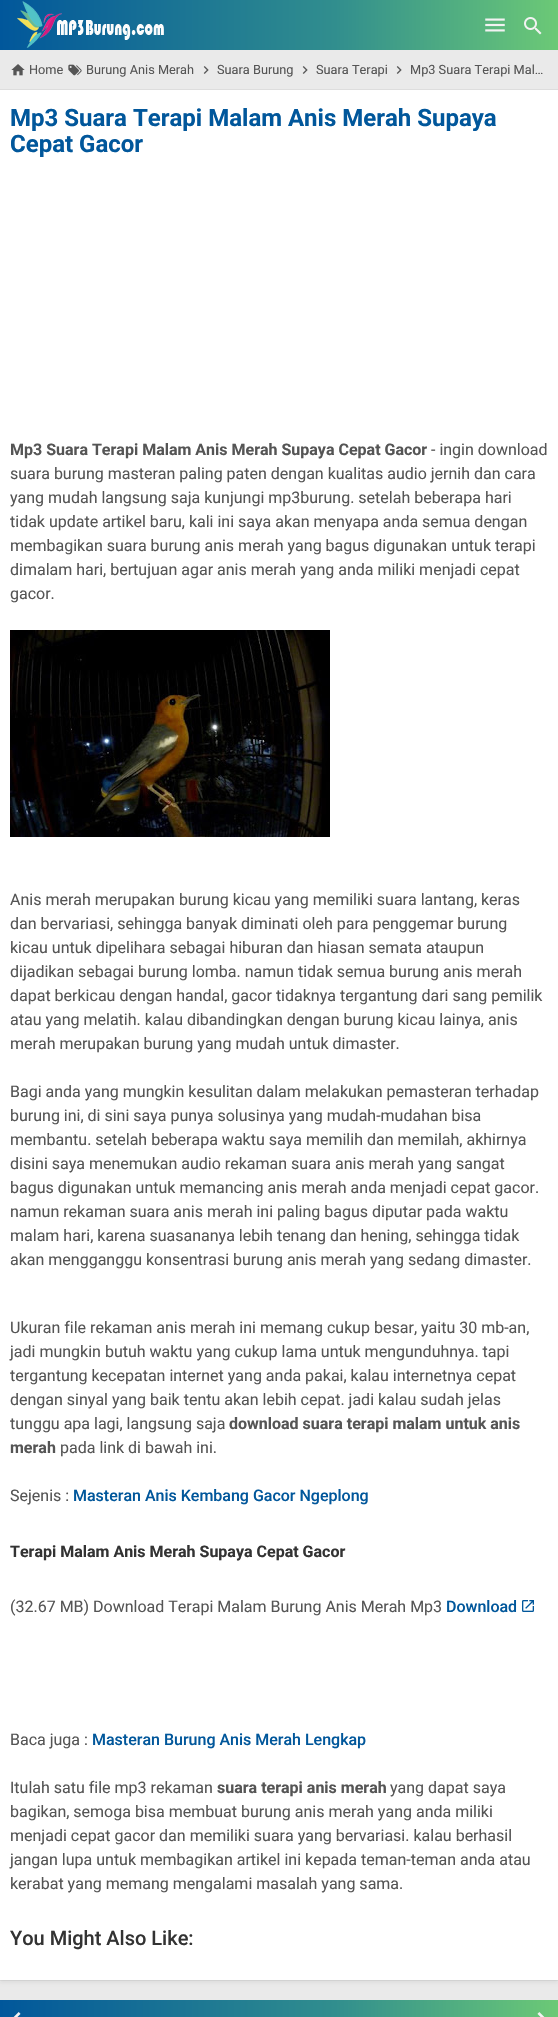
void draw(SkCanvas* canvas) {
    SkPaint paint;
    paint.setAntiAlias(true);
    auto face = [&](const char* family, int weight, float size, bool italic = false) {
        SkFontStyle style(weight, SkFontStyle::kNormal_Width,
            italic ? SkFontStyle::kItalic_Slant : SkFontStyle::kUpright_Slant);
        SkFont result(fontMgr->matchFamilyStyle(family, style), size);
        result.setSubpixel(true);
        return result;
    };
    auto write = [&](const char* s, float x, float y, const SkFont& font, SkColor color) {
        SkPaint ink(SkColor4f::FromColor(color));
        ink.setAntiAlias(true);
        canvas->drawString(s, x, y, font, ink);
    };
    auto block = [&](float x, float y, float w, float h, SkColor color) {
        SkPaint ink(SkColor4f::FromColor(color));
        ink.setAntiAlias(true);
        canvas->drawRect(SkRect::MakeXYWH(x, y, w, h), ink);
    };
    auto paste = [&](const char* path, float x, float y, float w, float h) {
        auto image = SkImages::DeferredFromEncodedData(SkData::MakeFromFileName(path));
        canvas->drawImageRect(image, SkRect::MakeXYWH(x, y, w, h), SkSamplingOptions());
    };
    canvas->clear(SkColorSetRGB(234, 234, 234));
    {
        const SkColor colors[] = {SkColorSetRGB(1, 87, 155), SkColorSetRGB(49, 142, 142), SkColorSetRGB(108, 201, 118)};
        const float stops[] = {0, 0.6f, 1};
        const SkPoint ends[] = {{0, 25}, {558, 25}};
        paint.setShader(SkGradientShader::MakeLinear(ends, colors, stops, 3, SkTileMode::kClamp));
        paint.setAlpha(255);
    }
    canvas->drawRect(SkRect::MakeXYWH(0, 0, 558, 50), paint);
    paste("pic1.png", 17, 1, 147, 47);
    paste("pic2.png", 485, 18, 20, 14);
    paste("pic3.png", 524, 17, 18, 18);
    paint.setShader(nullptr);
    paint.setColor(SkColorSetARGB(13, 0, 0, 0));
    paint.setMaskFilter(SkMaskFilter::MakeBlur(kNormal_SkBlurStyle, 1.5f));
    canvas->drawRect(SkRect::MakeXYWH(0, 93, 558, 1890), paint);
    paint.setMaskFilter(nullptr);
    block(0, 89, 558, 1, SkColorSetRGB(221, 221, 221));
    paste("pic4.png", 11, 64, 14, 12);
    auto kFont1 = face("Roboto", 400, 12.75f);
    write("Home", 29, 74, kFont1, SkColorSetRGB(85, 85, 85));
    paste("pic5.png", 68, 64, 14, 12);
    write("Burung Anis Merah", 86, 74, kFont1, SkColorSetRGB(85, 85, 85));
    paste("pic6.png", 203, 66, 6, 8);
    write("Suara Burung", 217, 74, kFont1, SkColorSetRGB(85, 85, 85));
    paste("pic6.png", 302, 66, 6, 8);
    write("Suara Terapi", 316, 74, kFont1, SkColorSetRGB(85, 85, 85));
    paste("pic6.png", 396, 66, 6, 8);
    write("Mp3 Suara Terapi Mal…", 410, 74, kFont1, SkColorSetRGB(85, 85, 85));
    block(0, 1980, 558, 1, SkColorSetARGB(13, 0, 0, 0));
    block(0, 90, 558, 1890, SK_ColorWHITE);
    auto kFont2 = face("Roboto", 700, 24);
    write("Mp3 Suara Terapi Malam Anis Merah Supaya", 10, 126, kFont2, SkColorSetRGB(1, 87, 155));
    write("Cepat Gacor", 10, 152, kFont2, SkColorSetRGB(1, 87, 155));
    auto kFont3 = face("Roboto", 700, 16);
    write("Mp3 Suara Terapi Malam Anis Merah Supaya Cepat Gacor", 10, 455, kFont3, SkColorSetRGB(85, 85, 85));
    auto kFont4 = face("Roboto", 400, 16);
    write("- ingin download", 431, 455, kFont4, SkColorSetRGB(85, 85, 85));
    write("suara burung masteran paling paten dengan kualitas audio jernih dan cara", 10, 479, kFont4, SkColorSetRGB(85, 85, 85));
    write("yang mudah langsung saja kunjungi mp3burung. setelah beberapa hari", 10, 503, kFont4, SkColorSetRGB(85, 85, 85));
    write("tidak update artikel baru, kali ini saya akan menyapa anda semua dengan", 10, 527, kFont4, SkColorSetRGB(85, 85, 85));
    write("membagikan suara burung anis merah yang bagus digunakan untuk terapi", 10, 551, kFont4, SkColorSetRGB(85, 85, 85));
    write("dimalam hari, bertujuan agar anis merah yang anda miliki menjadi cepat", 10, 575, kFont4, SkColorSetRGB(85, 85, 85));
    write("gacor.", 10, 599, kFont4, SkColorSetRGB(85, 85, 85));
    paste("pic7.png", 10, 630, 320, 207);
    write("Anis merah merupakan burung kicau yang memiliki suara lantang, keras", 10, 905, kFont4, SkColorSetRGB(85, 85, 85));
    write("dan bervariasi, sehingga banyak diminati oleh para penggemar burung", 10, 929, kFont4, SkColorSetRGB(85, 85, 85));
    write("kicau untuk dipelihara sebagai hiburan dan hiasan semata ataupun", 10, 953, kFont4, SkColorSetRGB(85, 85, 85));
    write("dijadikan sebagai burung lomba. namun tidak semua burung anis merah", 10, 977, kFont4, SkColorSetRGB(85, 85, 85));
    write("dapat berkicau dengan handal, gacor tidaknya tergantung dari sang pemilik", 10, 1001, kFont4, SkColorSetRGB(85, 85, 85));
    write("atau yang melatih. kalau dibandingkan dengan burung kicau lainya, anis", 10, 1025, kFont4, SkColorSetRGB(85, 85, 85));
    write("merah merupakan burung yang mudah untuk dimaster.", 10, 1049, kFont4, SkColorSetRGB(85, 85, 85));
    write("Bagi anda yang mungkin kesulitan dalam melakukan pemasteran terhadap", 10, 1097, kFont4, SkColorSetRGB(85, 85, 85));
    write("burung ini, di sini saya punya solusinya yang mudah-mudahan bisa", 10, 1121, kFont4, SkColorSetRGB(85, 85, 85));
    write("membantu. setelah beberapa waktu saya memilih dan memilah, akhirnya", 10, 1145, kFont4, SkColorSetRGB(85, 85, 85));
    write("disini saya menemukan audio rekaman suara anis merah yang sangat", 10, 1169, kFont4, SkColorSetRGB(85, 85, 85));
    write("bagus digunakan untuk memancing anis merah anda menjadi cepat gacor.", 10, 1193, kFont4, SkColorSetRGB(85, 85, 85));
    write("namun rekaman suara anis merah ini paling bagus diputar pada waktu", 10, 1217, kFont4, SkColorSetRGB(85, 85, 85));
    write("malam hari, karena suasananya lebih tenang dan hening, sehingga tidak", 10, 1241, kFont4, SkColorSetRGB(85, 85, 85));
    write("akan mengganggu konsentrasi burung anis merah yang sedang dimaster.", 10, 1265, kFont4, SkColorSetRGB(85, 85, 85));
    write("Ukuran file rekaman anis merah ini memang cukup besar, yaitu 30 mb-an,", 10, 1333, kFont4, SkColorSetRGB(85, 85, 85));
    write("jadi mungkin butuh waktu yang cukup lama untuk mengunduhnya. tapi", 10, 1357, kFont4, SkColorSetRGB(85, 85, 85));
    write("tergantung kecepatan internet yang anda pakai, kalau internetnya cepat", 10, 1381, kFont4, SkColorSetRGB(85, 85, 85));
    write("dengan sinyal yang baik tentu akan lebih cepat. jadi kalau sudah jelas", 10, 1405, kFont4, SkColorSetRGB(85, 85, 85));
    write("tunggu apa lagi, langsung saja", 10, 1429, kFont4, SkColorSetRGB(85, 85, 85));
    write("download suara terapi malam untuk anis", 229, 1429, kFont3, SkColorSetRGB(85, 85, 85));
    write("merah", 10, 1453, kFont3, SkColorSetRGB(85, 85, 85));
    write("pada link di bawah ini.", 60, 1453, kFont4, SkColorSetRGB(85, 85, 85));
    write("Sejenis :", 10, 1501, kFont4, SkColorSetRGB(85, 85, 85));
    auto kFont5 = face("Roboto", 500, 16);
    write("Masteran Anis Kembang Gacor Ngeplong", 73, 1501, kFont5, SkColorSetRGB(1, 87, 155));
    write("Terapi Malam Anis Merah Supaya Cepat Gacor", 10, 1557, kFont3, SkColorSetRGB(51, 51, 51));
    write("(32.67 MB) Download Terapi Malam Burung Anis Merah Mp3", 10, 1612, kFont4, SkColorSetRGB(85, 85, 85));
    write("Download", 446, 1612, kFont5, SkColorSetRGB(1, 87, 155));
    paste("pic8.png", 522, 1600, 12, 12);
    write("Baca juga :", 10, 1745, kFont4, SkColorSetRGB(85, 85, 85));
    write("Masteran Burung Anis Merah Lengkap", 92, 1745, kFont5, SkColorSetRGB(1, 87, 155));
    write("Itulah satu file mp3 rekaman", 10, 1793, kFont4, SkColorSetRGB(85, 85, 85));
    write("suara terapi anis merah", 217, 1793, kFont3, SkColorSetRGB(85, 85, 85));
    write("yang dapat saya", 390, 1793, kFont4, SkColorSetRGB(85, 85, 85));
    write("bagikan, semoga bisa membuat burung anis merah yang anda miliki", 10, 1817, kFont4, SkColorSetRGB(85, 85, 85));
    write("menjadi cepat gacor dan memiliki suara yang bervariasi. kalau berhasil", 10, 1841, kFont4, SkColorSetRGB(85, 85, 85));
    write("jangan lupa untuk membagikan artikel ini kepada teman-teman anda atau", 10, 1865, kFont4, SkColorSetRGB(85, 85, 85));
    write("kerabat yang memang mengalami masalah yang sama.", 10, 1889, kFont4, SkColorSetRGB(85, 85, 85));
    auto kFont6 = face("Roboto", 500, 20);
    write("You Might Also Like:", 10, 1945, kFont6, SkColorSetRGB(51, 51, 51));
    {
        const SkColor colors[] = {SkColorSetRGB(1, 87, 155), SkColorSetRGB(49, 142, 142), SkColorSetRGB(108, 201, 118)};
        const float stops[] = {0, 0.6f, 1};
        const SkPoint ends[] = {{0, 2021}, {558, 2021}};
        paint.setShader(SkGradientShader::MakeLinear(ends, colors, stops, 3, SkTileMode::kClamp));
        paint.setAlpha(255);
    }
    canvas->drawRect(SkRect::MakeXYWH(0, 2000, 558, 17), paint);
    paste("pic9.png", 13, 2012, 8, 5);
    paste("pic10.png", 537, 2012, 8, 5);
}
